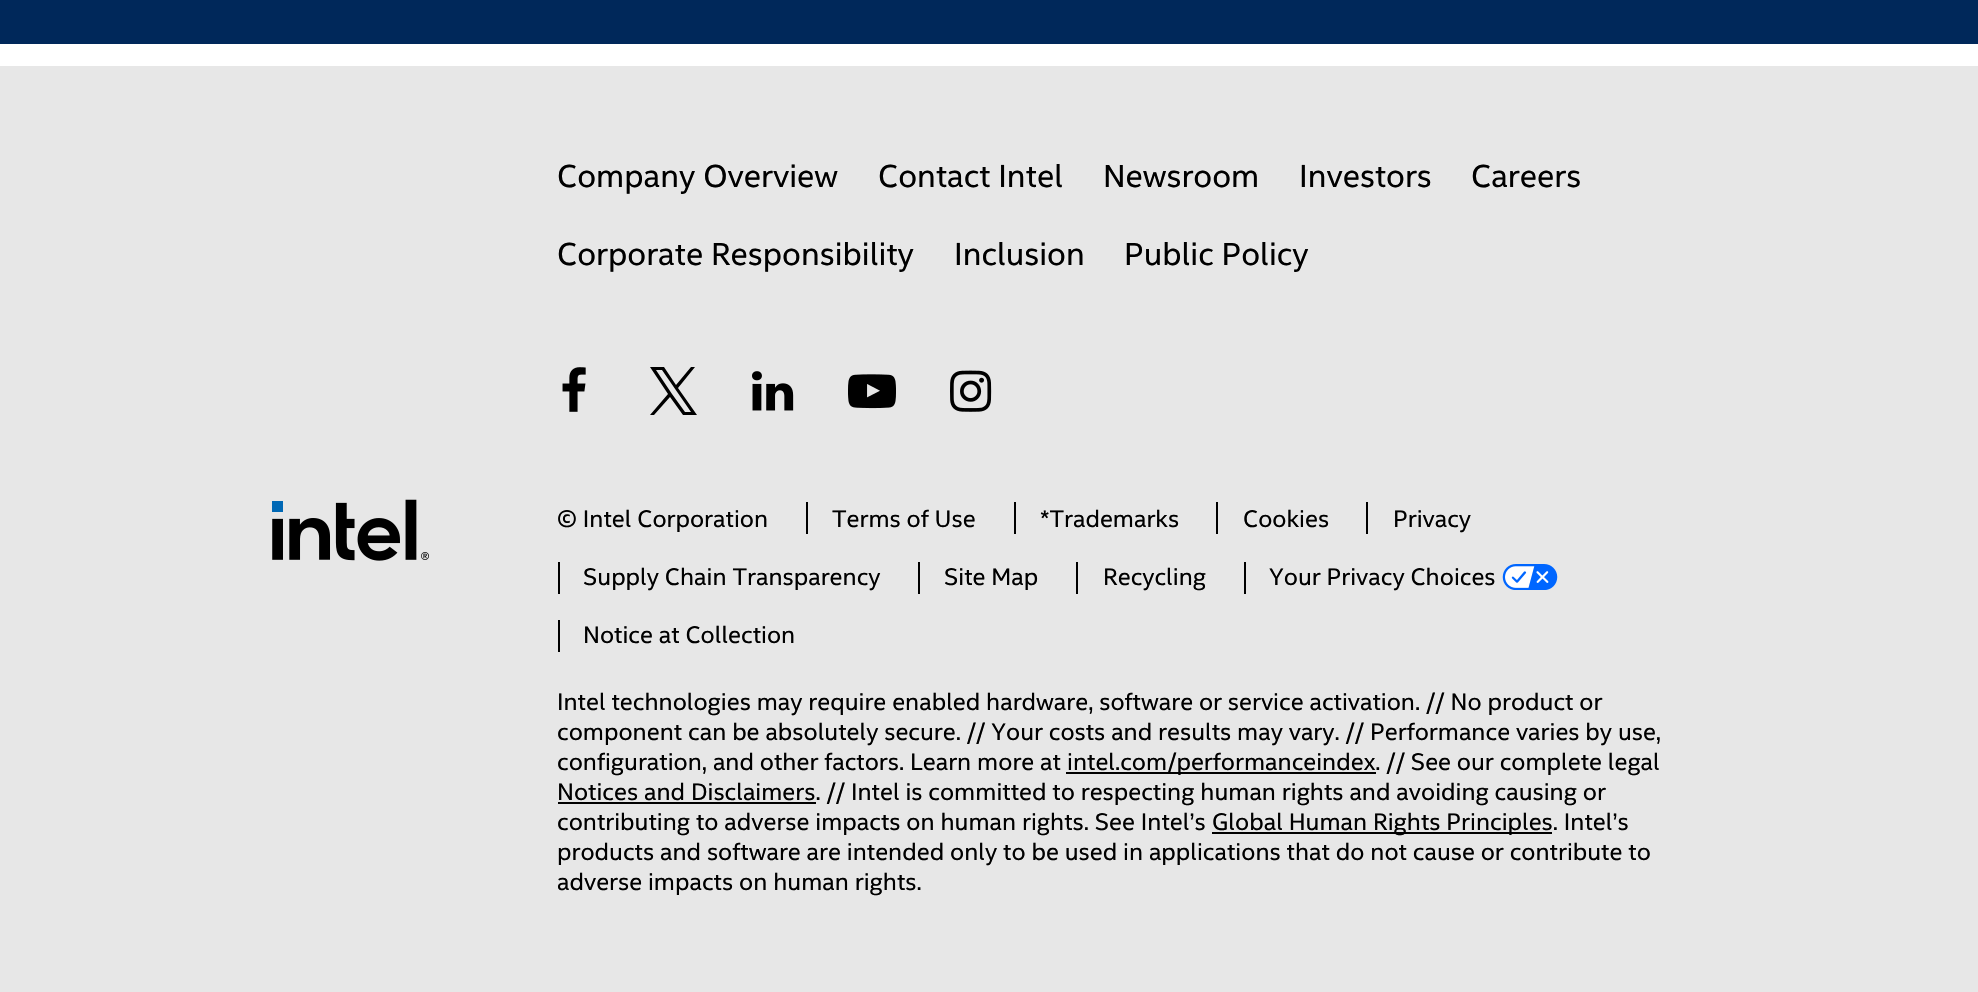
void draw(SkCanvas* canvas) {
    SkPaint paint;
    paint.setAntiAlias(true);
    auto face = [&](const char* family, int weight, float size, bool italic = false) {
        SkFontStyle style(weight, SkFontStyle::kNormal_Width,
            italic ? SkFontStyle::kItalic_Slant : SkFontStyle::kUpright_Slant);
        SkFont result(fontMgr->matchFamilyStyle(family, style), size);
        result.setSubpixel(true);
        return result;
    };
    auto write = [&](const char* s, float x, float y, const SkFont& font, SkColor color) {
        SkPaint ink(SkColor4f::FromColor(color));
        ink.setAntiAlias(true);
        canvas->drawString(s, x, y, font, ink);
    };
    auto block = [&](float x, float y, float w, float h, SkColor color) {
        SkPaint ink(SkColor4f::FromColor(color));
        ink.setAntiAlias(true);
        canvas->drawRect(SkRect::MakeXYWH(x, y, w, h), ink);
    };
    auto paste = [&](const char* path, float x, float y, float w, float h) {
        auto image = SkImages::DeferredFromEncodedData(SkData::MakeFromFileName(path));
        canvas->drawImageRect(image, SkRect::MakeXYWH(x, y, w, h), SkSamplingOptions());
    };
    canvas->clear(SK_ColorWHITE);
    block(0, 0, 1978, 44, SkColorSetRGB(0, 40, 90));
    block(0, 66, 1978, 926, SkColorSetRGB(231, 231, 231));
    paste("pic1.png", 272, 499, 157, 62);
    auto kFont1 = face("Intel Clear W", 400, 32);
    write("Company Overview", 557, 187, kFont1, SK_ColorBLACK);
    write("Contact Intel", 878, 187, kFont1, SK_ColorBLACK);
    write("Newsroom", 1103, 187, kFont1, SK_ColorBLACK);
    write("Investors", 1299, 187, kFont1, SK_ColorBLACK);
    write("Careers", 1471, 187, kFont1, SK_ColorBLACK);
    write("Corporate Responsibility", 557, 265, kFont1, SK_ColorBLACK);
    write("Inclusion", 954, 265, kFont1, SK_ColorBLACK);
    write("Public Policy", 1124, 265, kFont1, SK_ColorBLACK);
    paste("pic2.png", 562, 367, 24, 45);
    paint.setColor(SK_ColorBLACK);
    canvas->drawPath(SkPathBuilder().moveTo(678, 388).lineTo(695, 367).lineTo(691, 367).lineTo(676, 385).lineTo(664, 367).lineTo(650, 367).lineTo(668, 394).lineTo(650, 415).lineTo(654, 415).lineTo(670, 397).lineTo(683, 415).lineTo(697, 415).close().moveTo(672, 394).lineTo(656, 370).lineTo(662, 370).lineTo(691, 412).lineTo(685, 412).close().detach(), paint);
    paste("pic3.png", 752, 371, 42, 40);
    paste("pic4.png", 848, 374, 48, 35);
    paste("pic5.png", 950, 370, 42, 42);
    auto kFont2 = face("Intel Clear W", 400, 24);
    write("© Intel Corporation", 557, 527, kFont2, SK_ColorBLACK);
    write("Terms of Use", 832, 527, kFont2, SK_ColorBLACK);
    block(806, 502, 2, 32, SK_ColorBLACK);
    write("*Trademarks", 1040, 527, kFont2, SK_ColorBLACK);
    block(1014, 502, 2, 32, SK_ColorBLACK);
    write("Cookies", 1243, 527, kFont2, SK_ColorBLACK);
    block(1216, 502, 2, 32, SK_ColorBLACK);
    write("Privacy", 1393, 527, kFont2, SK_ColorBLACK);
    block(1366, 502, 2, 32, SK_ColorBLACK);
    write("Supply Chain Transparency", 583, 585, kFont2, SK_ColorBLACK);
    block(558, 562, 2, 32, SK_ColorBLACK);
    write("Site Map", 944, 585, kFont2, SK_ColorBLACK);
    block(918, 562, 2, 32, SK_ColorBLACK);
    write("Recycling", 1103, 585, kFont2, SK_ColorBLACK);
    block(1076, 562, 2, 32, SK_ColorBLACK);
    block(1244, 562, 2, 32, SK_ColorBLACK);
    write("Your Privacy Choices", 1269, 585, kFont2, SK_ColorBLACK);
    paste("pic6.png", 1502, 564, 56, 26);
    write("Notice at Collection", 583, 643, kFont2, SK_ColorBLACK);
    block(558, 620, 2, 32, SK_ColorBLACK);
    write("Intel technologies may require enabled hardware, software or service activation. // No product or", 557, 710, kFont2, SK_ColorBLACK);
    write("component can be absolutely secure. // Your costs and results may vary. // Performance varies by use,", 557, 740, kFont2, SK_ColorBLACK);
    write("configuration, and other factors. Learn more at", 557, 770, kFont2, SK_ColorBLACK);
    block(1066, 772, 310, 2, SK_ColorBLACK);
    write("intel.com/performanceindex. // See our complete legal", 1067, 770, kFont2, SK_ColorBLACK);
    block(558, 802, 258, 2, SK_ColorBLACK);
    write("Notices and Disclaimers. // Intel is committed to respecting human rights and avoiding causing or", 557, 800, kFont2, SK_ColorBLACK);
    write("contributing to adverse impacts on human rights. See Intel’s", 557, 830, kFont2, SK_ColorBLACK);
    block(1212, 832, 340, 2, SK_ColorBLACK);
    write("Global Human Rights Principles. Intel’s", 1212, 830, kFont2, SK_ColorBLACK);
    write("products and software are intended only to be used in applications that do not cause or contribute to", 557, 860, kFont2, SK_ColorBLACK);
    write("adverse impacts on human rights.", 557, 890, kFont2, SK_ColorBLACK);
}
